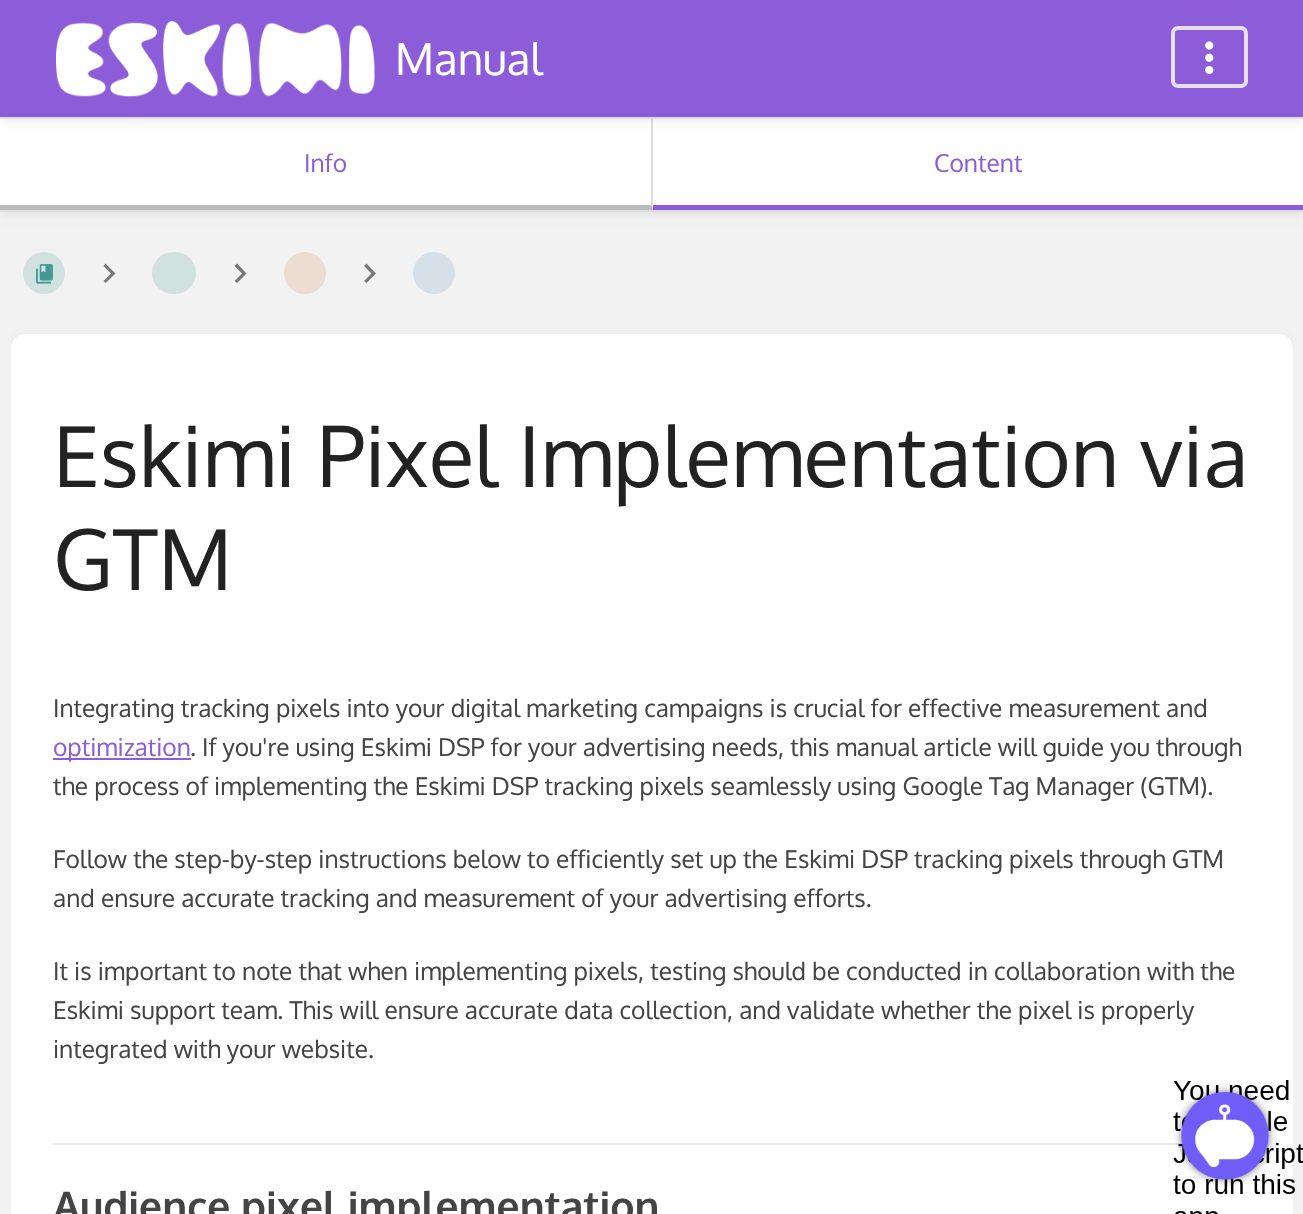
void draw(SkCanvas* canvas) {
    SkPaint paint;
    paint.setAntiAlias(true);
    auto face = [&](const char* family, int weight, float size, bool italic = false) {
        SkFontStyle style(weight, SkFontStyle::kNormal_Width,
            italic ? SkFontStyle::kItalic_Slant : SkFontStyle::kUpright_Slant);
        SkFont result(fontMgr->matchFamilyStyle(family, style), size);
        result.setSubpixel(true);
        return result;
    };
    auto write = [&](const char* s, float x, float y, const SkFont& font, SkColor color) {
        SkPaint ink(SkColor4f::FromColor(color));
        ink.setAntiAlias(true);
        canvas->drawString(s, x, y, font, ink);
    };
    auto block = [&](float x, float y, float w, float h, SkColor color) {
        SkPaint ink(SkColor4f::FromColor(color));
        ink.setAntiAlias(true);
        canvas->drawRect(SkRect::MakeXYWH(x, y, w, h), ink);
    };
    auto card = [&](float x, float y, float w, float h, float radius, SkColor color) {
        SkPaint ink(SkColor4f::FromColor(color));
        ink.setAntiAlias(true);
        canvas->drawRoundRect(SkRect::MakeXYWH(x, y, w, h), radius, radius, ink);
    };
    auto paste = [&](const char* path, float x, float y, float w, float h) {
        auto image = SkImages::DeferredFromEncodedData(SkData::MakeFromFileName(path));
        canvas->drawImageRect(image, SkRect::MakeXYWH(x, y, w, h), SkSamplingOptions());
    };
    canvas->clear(SkColorSetRGB(242, 242, 242));
    paint.setColor(SkColorSetARGB(26, 0, 0, 0));
    paint.setMaskFilter(SkMaskFilter::MakeBlur(kNormal_SkBlurStyle, 5));
    canvas->drawRect(SkRect::MakeXYWH(2, 123, 1300, 89), paint);
    paint.setMaskFilter(nullptr);
    block(0, 119, 1303, 91, SK_ColorWHITE);
    paint.setColor(SkColorSetRGB(221, 221, 221));
    canvas->drawPath(SkPathBuilder().moveTo(653, 119).lineTo(653, 210).lineTo(651, 205).lineTo(651, 119).close().detach(), paint);
    paint.setColor(SkColorSetARGB(26, 0, 0, 0));
    paint.setMaskFilter(SkMaskFilter::MakeBlur(kNormal_SkBlurStyle, 5));
    canvas->drawRect(SkRect::MakeXYWH(2, 4, 1300, 115), paint);
    paint.setMaskFilter(nullptr);
    block(0, 0, 1303, 117, SkColorSetRGB(141, 93, 217));
    block(0, 117, 1303, 2, SkColorSetRGB(221, 221, 221));
    paste("pic1.png", 56, 21, 319, 76);
    auto kFont1 = face("Oxygen", 400, 44);
    write("Manual", 395, 75, kFont1, SK_ColorWHITE);
    paint.setStyle(SkPaint::kStroke_Style);
    paint.setStrokeWidth(4);
    paint.setColor(SkColorSetRGB(232, 223, 247));
    canvas->drawRoundRect(SkRect::MakeXYWH(1173, 28, 73, 58), 5, 5, paint);
    paste("pic2.png", 1205, 41, 9, 34);
    block(0, 210, 1303, 2, SkColorSetRGB(221, 221, 221));
    paint.setStyle(SkPaint::kFill_Style);
    paint.setColor(SkColorSetRGB(187, 187, 187));
    canvas->drawPath(SkPathBuilder().moveTo(653, 210).lineTo(0, 210).lineTo(0, 205).lineTo(651, 205).close().detach(), paint);
    auto kFont2 = face("Oxygen", 400, 24.5f);
    write("Info", 304, 172, kFont2, SkColorSetRGB(141, 93, 217));
    block(653, 205, 650, 5, SkColorSetRGB(141, 93, 217));
    write("Content", 934, 172, kFont2, SkColorSetRGB(141, 93, 217));
    paste("pic3.png", 36, 264, 17, 20);
    paint.setColor(SkColorSetARGB(36, 7, 123, 112));
    canvas->drawCircle(44, 273, 21, paint);
    paint.setColor(SkColorSetRGB(120, 120, 120));
    canvas->drawPath(SkPathBuilder().moveTo(105.5f, 263.5f).lineTo(103.5f, 266).lineTo(111, 273.5f).lineTo(103.5f, 281).lineTo(105.5f, 283).lineTo(115.5f, 273.5f).close().detach(), paint);
    card(152, 252, 44, 42, 21, SkColorSetRGB(209, 225, 224));
    canvas->drawPath(SkPathBuilder().moveTo(237, 263.5f).lineTo(234.5f, 266).lineTo(242, 273.5f).lineTo(234.5f, 281).lineTo(237, 283).lineTo(246.5f, 273.5f).close().detach(), paint);
    paint.setColor(SkColorSetRGB(236, 220, 209));
    canvas->drawCircle(305, 273, 21, paint);
    paint.setColor(SkColorSetRGB(120, 120, 120));
    canvas->drawPath(SkPathBuilder().moveTo(366.5f, 263.5f).lineTo(364, 266).lineTo(371.5f, 273.5f).lineTo(364, 281).lineTo(366.5f, 283).lineTo(376, 273.5f).close().detach(), paint);
    paint.setColor(SkColorSetRGB(213, 224, 232));
    canvas->drawCircle(434, 273, 21, paint);
    canvas->save();
    canvas->clipRect(SkRect::MakeXYWH(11, 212, 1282, 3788));
    paint.setColor(SkColorSetARGB(26, 0, 0, 0));
    paint.setMaskFilter(SkMaskFilter::MakeBlur(kNormal_SkBlurStyle, 5));
    canvas->drawRoundRect(SkRect::MakeXYWH(12, 338, 1280, 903), 12, 12, paint);
    paint.setMaskFilter(nullptr);
    canvas->restore();
    card(11, 334, 1282, 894, 14, SK_ColorWHITE);
    auto kFont3 = face("Oxygen", 400, 83.9f);
    write("Eskimi Pixel Implementation via", 53, 487, kFont3, SkColorSetRGB(34, 34, 34));
    write("GTM", 53, 590, kFont3, SkColorSetRGB(34, 34, 34));
    write("Integrating tracking pixels into your digital marketing campaigns is crucial for effective measurement and", 53, 717, kFont2, SkColorSetRGB(68, 68, 68));
    block(53, 758, 138, 2, SkColorSetRGB(141, 93, 217));
    write("optimization", 53, 756, kFont2, SkColorSetRGB(141, 93, 217));
    write(". If you're using Eskimi DSP for your advertising needs, this manual article will guide you through", 190, 756, kFont2, SkColorSetRGB(68, 68, 68));
    write("the process of implementing the Eskimi DSP tracking pixels seamlessly using Google Tag Manager (GTM).", 53, 795, kFont2, SkColorSetRGB(68, 68, 68));
    write("Follow the step-by-step instructions below to efficiently set up the Eskimi DSP tracking pixels through GTM", 53, 868, kFont2, SkColorSetRGB(68, 68, 68));
    write("and ensure accurate tracking and measurement of your advertising efforts.", 53, 907, kFont2, SkColorSetRGB(68, 68, 68));
    write("It is important to note that when implementing pixels, testing should be conducted in collaboration with the", 53, 980, kFont2, SkColorSetRGB(68, 68, 68));
    write("Eskimi support team. This will ensure accurate data collection, and validate whether the pixel is properly", 53, 1019, kFont2, SkColorSetRGB(68, 68, 68));
    write("integrated with your website.", 53, 1058, kFont2, SkColorSetRGB(68, 68, 68));
    block(53, 1143, 1130, 2, SkColorSetRGB(234, 234, 234));
    auto kFont4 = face("Oxygen", 700, 40.8f);
    write("Audience pixel implementation", 53, 1221, kFont4, SkColorSetRGB(68, 68, 68));
    paste("pic4.png", 1173, 1080, 130, 134);
}
